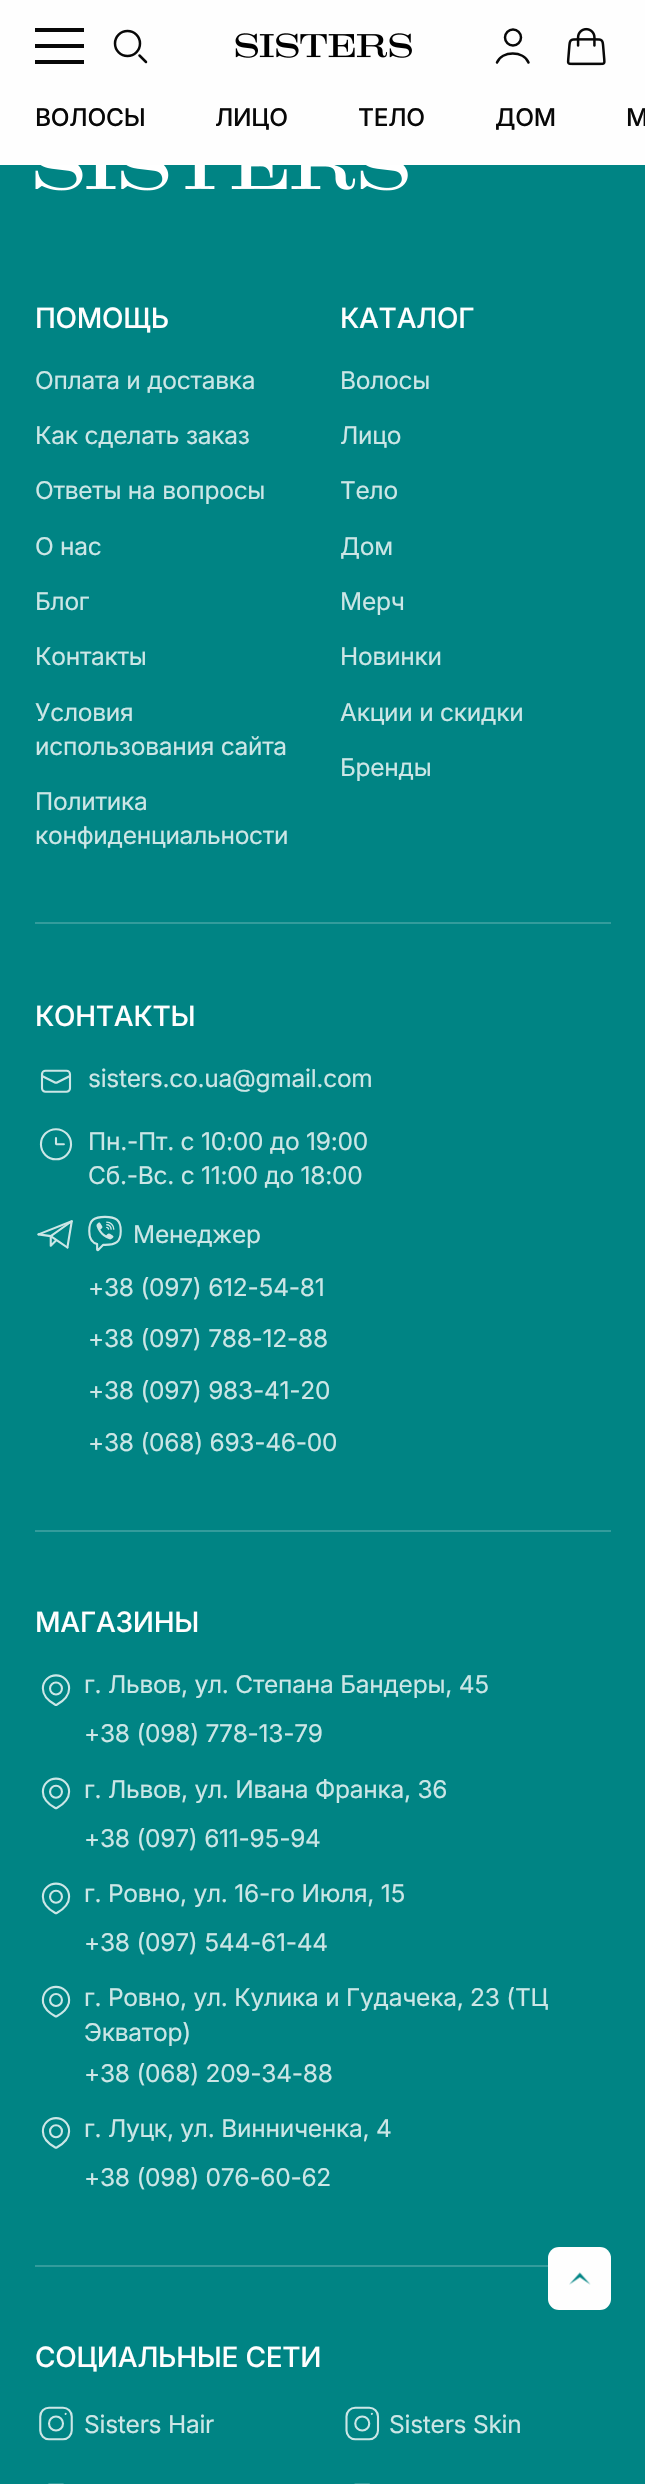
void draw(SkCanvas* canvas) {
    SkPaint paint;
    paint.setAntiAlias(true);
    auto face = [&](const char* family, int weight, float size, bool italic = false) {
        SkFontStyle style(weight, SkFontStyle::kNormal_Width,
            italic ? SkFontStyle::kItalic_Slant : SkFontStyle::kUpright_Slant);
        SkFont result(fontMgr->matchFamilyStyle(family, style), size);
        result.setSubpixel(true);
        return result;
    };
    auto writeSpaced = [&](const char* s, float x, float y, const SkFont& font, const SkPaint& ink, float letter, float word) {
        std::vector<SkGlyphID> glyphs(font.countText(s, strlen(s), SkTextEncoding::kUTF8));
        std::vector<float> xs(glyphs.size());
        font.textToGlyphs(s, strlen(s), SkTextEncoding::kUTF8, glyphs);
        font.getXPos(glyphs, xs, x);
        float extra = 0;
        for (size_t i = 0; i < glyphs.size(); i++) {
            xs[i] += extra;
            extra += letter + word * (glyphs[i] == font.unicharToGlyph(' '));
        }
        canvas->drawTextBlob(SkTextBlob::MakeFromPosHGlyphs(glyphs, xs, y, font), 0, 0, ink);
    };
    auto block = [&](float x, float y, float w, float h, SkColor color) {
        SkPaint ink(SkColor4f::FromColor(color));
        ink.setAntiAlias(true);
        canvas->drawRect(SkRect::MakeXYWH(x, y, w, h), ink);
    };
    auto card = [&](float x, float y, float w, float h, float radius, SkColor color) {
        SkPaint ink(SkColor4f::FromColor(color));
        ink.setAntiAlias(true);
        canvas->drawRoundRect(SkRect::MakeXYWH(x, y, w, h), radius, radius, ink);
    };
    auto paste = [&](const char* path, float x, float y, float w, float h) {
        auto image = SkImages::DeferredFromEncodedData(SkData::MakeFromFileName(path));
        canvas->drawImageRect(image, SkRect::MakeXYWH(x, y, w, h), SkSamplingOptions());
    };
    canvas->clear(SkColorSetRGB(0, 132, 132));
    block(0, 0, 645, 165, SkColorSetRGB(254, 254, 254));
    block(35, 28, 49, 4, SkColorSetRGB(8, 8, 8));
    block(35, 44, 49, 4, SkColorSetRGB(8, 8, 8));
    block(35, 60, 49, 4, SkColorSetRGB(8, 8, 8));
    paint.setStyle(SkPaint::kStroke_Style);
    paint.setStrokeWidth(2.5f);
    paint.setColor(SkColorSetRGB(8, 8, 8));
    canvas->drawCircle(127.5f, 43.5f, 12.5f, paint);
    paint.setStrokeCap(SkPaint::kRound_Cap);
    canvas->drawPath(SkPathBuilder().moveTo(146, 62).lineTo(139.5f, 55.5f).detach(), paint);
    paste("pic1.png", 235, 33, 177, 25);
    canvas->drawPath(SkPathBuilder().moveTo(528.5f, 62.5f).cubicTo(524, 50.5f, 501.5f, 50.5f, 497, 62.5f).detach(), paint);
    paint.setStrokeCap(SkPaint::kButt_Cap);
    canvas->drawCircle(513, 37.5f, 8, paint);
    paste("pic2.png", 566, 27, 40, 39);
    auto kFont1 = face("Inter", 500, 24.5f);
    paint.setStyle(SkPaint::kFill_Style);
    writeSpaced("ВОЛОСЫ", 35, 126, kFont1, paint, -0.25f, 0);
    writeSpaced("ЛИЦО", 215, 126, kFont1, paint, -0.25f, 0);
    writeSpaced("ТЕЛО", 358, 126, kFont1, paint, -0.25f, 0);
    writeSpaced("ДОМ", 495, 126, kFont1, paint, -0.25f, 0);
    writeSpaced("М", 626, 126, kFont1, paint, -0.25f, 0);
    paste("pic3.png", 35, 165, 373, 26);
    block(35, 922, 576, 2, SkColorSetRGB(51, 156, 156));
    auto kFont2 = face("Inter", 500, 28);
    paint.setColor(SkColorSetRGB(254, 254, 254));
    writeSpaced("ПОМОЩЬ", 35, 328, kFont2, paint, -0.25f, 0);
    auto kFont3 = face("Inter", 400, 24.5f);
    paint.setColor(SkColorSetRGB(204, 230, 230));
    writeSpaced("Оплата и доставка", 35, 389, kFont3, paint, -0.25f, 0);
    writeSpaced("Как сделать заказ", 35, 444, kFont3, paint, -0.25f, 0);
    writeSpaced("Ответы на вопросы", 35, 499, kFont3, paint, -0.25f, 0);
    writeSpaced("О нас", 35, 555, kFont3, paint, -0.25f, 0);
    writeSpaced("Блог", 35, 610, kFont3, paint, -0.25f, 0);
    writeSpaced("Контакты", 35, 665, kFont3, paint, -0.25f, 0);
    writeSpaced("Условия", 35, 721, kFont3, paint, -0.25f, 0);
    writeSpaced("использования сайта", 35, 755, kFont3, paint, -0.25f, 0);
    writeSpaced("Политика", 35, 810, kFont3, paint, -0.25f, 0);
    writeSpaced("конфиденциальности", 35, 844, kFont3, paint, -0.25f, 0);
    paint.setColor(SkColorSetRGB(254, 254, 254));
    writeSpaced("КАТАЛОГ", 340, 328, kFont2, paint, -0.25f, 0);
    paint.setColor(SkColorSetRGB(204, 230, 230));
    writeSpaced("Волосы", 340, 389, kFont3, paint, -0.25f, 0);
    writeSpaced("Лицо", 340, 444, kFont3, paint, -0.25f, 0);
    writeSpaced("Тело", 340, 499, kFont3, paint, -0.25f, 0);
    writeSpaced("Дом", 340, 555, kFont3, paint, -0.25f, 0);
    writeSpaced("Мерч", 340, 610, kFont3, paint, -0.25f, 0);
    writeSpaced("Новинки", 340, 665, kFont3, paint, -0.25f, 0);
    writeSpaced("Акции и скидки", 340, 721, kFont3, paint, -0.25f, 0);
    writeSpaced("Бренды", 340, 776, kFont3, paint, -0.25f, 0);
    block(35, 1530, 576, 2, SkColorSetRGB(51, 156, 156));
    paint.setColor(SkColorSetRGB(254, 254, 254));
    writeSpaced("КОНТАКТЫ", 35, 1026, kFont2, paint, -0.25f, 0);
    paste("pic4.png", 40, 1069, 32, 24);
    paint.setColor(SkColorSetRGB(204, 230, 230));
    writeSpaced("sisters.co.ua@gmail.com", 88, 1087, kFont3, paint, -0.25f, 0);
    paste("pic5.png", 39, 1128, 34, 33);
    writeSpaced("Пн.-Пт. с 10:00 до 19:00", 88, 1150, kFont3, paint, -0.25f, 0);
    writeSpaced("Сб.-Вс. с 11:00 до 18:00", 88, 1184, kFont3, paint, -0.25f, 0);
    paste("pic6.png", 37, 1220, 36, 29);
    paste("pic7.png", 88, 1215, 34, 37);
    writeSpaced("Менеджер", 133, 1243, kFont3, paint, -0.25f, 0);
    writeSpaced("+38 (097) 612-54-81", 88, 1296, kFont3, paint, -0.25f, 0);
    writeSpaced("+38 (097) 788-12-88", 88, 1347, kFont3, paint, -0.25f, 0);
    writeSpaced("+38 (097) 983-41-20", 88, 1399, kFont3, paint, -0.25f, 0);
    writeSpaced("+38 (068) 693-46-00", 88, 1451, kFont3, paint, -0.25f, 0);
    block(35, 2265, 513, 2, SkColorSetRGB(51, 156, 156));
    paint.setColor(SkColorSetRGB(254, 254, 254));
    writeSpaced("МАГАЗИНЫ", 35, 1632, kFont2, paint, -0.25f, 0);
    paste("pic8.png", 41, 1674, 30, 32);
    paint.setColor(SkColorSetRGB(204, 230, 230));
    writeSpaced("г. Львов, ул. Степана Бандеры, 45", 84, 1693, kFont3, paint, -0.25f, 0);
    writeSpaced("+38 (098) 778-13-79", 84, 1742, kFont3, paint, -0.25f, 0);
    paste("pic9.png", 41, 1777, 30, 33);
    writeSpaced("г. Львов, ул. Ивана Франка, 36", 84, 1798, kFont3, paint, -0.25f, 0);
    writeSpaced("+38 (097) 611-95-94", 84, 1847, kFont3, paint, -0.25f, 0);
    paste("pic9.png", 41, 1882, 30, 33);
    writeSpaced("г. Ровно, ул. 16-го Июля, 15", 84, 1902, kFont3, paint, -0.25f, 0);
    writeSpaced("+38 (097) 544-61-44", 84, 1951, kFont3, paint, -0.25f, 0);
    paste("pic10.png", 41, 1985, 30, 33);
    writeSpaced("г. Ровно, ул. Кулика и Гудачека, 23 (ТЦ", 84, 2006, kFont3, paint, -0.25f, 0);
    writeSpaced("Экватор)", 84, 2041, kFont3, paint, -0.25f, 0);
    writeSpaced("+38 (068) 209-34-88", 84, 2082, kFont3, paint, -0.25f, 0);
    paste("pic11.png", 41, 2117, 30, 32);
    writeSpaced("г. Луцк, ул. Винниченка, 4", 84, 2137, kFont3, paint, -0.25f, 0);
    writeSpaced("+38 (098) 076-60-62", 84, 2186, kFont3, paint, -0.25f, 0);
    paint.setColor(SkColorSetRGB(254, 254, 254));
    writeSpaced("СОЦИАЛЬНЫЕ СЕТИ", 35, 2367, kFont2, paint, -0.25f, 0);
    paste("pic12.png", 39, 2406, 34, 35);
    paint.setColor(SkColorSetRGB(204, 230, 230));
    writeSpaced("Sisters Hair", 84, 2433, kFont3, paint, -0.25f, 0);
    paste("pic13.png", 345, 2406, 35, 35);
    writeSpaced("Sisters Skin", 389, 2433, kFont3, paint, -0.25f, 0);
    paste("pic14.png", 48, 2483, 16, 1);
    paste("pic15.png", 354, 2483, 16, 1);
    card(548, 2247, 63, 63, 11, SkColorSetRGB(254, 254, 254));
    paste("pic16.png", 569, 2272, 22, 13);
}
